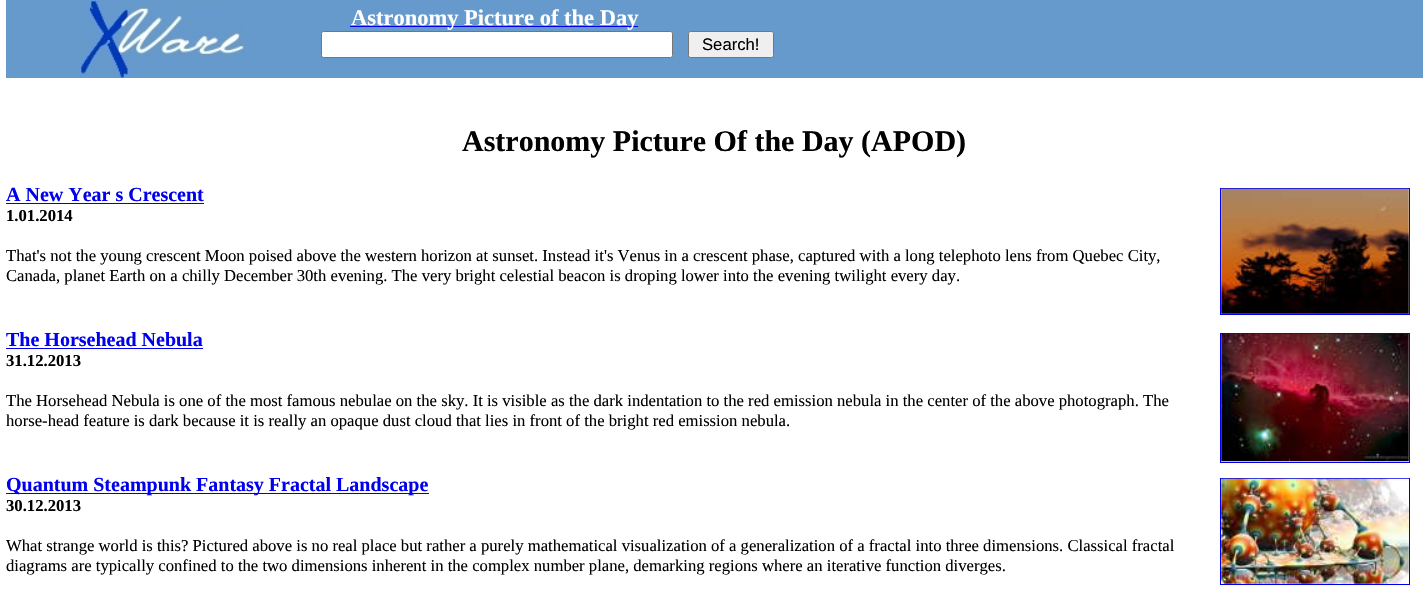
void draw(SkCanvas* canvas) {
    SkPaint paint;
    paint.setAntiAlias(true);
    auto face = [&](const char* family, int weight, float size, bool italic = false) {
        SkFontStyle style(weight, SkFontStyle::kNormal_Width,
            italic ? SkFontStyle::kItalic_Slant : SkFontStyle::kUpright_Slant);
        SkFont result(fontMgr->matchFamilyStyle(family, style), size);
        result.setSubpixel(true);
        return result;
    };
    auto write = [&](const char* s, float x, float y, const SkFont& font, SkColor color) {
        SkPaint ink(SkColor4f::FromColor(color));
        ink.setAntiAlias(true);
        canvas->drawString(s, x, y, font, ink);
    };
    auto block = [&](float x, float y, float w, float h, SkColor color) {
        SkPaint ink(SkColor4f::FromColor(color));
        ink.setAntiAlias(true);
        canvas->drawRect(SkRect::MakeXYWH(x, y, w, h), ink);
    };
    auto paste = [&](const char* path, float x, float y, float w, float h) {
        auto image = SkImages::DeferredFromEncodedData(SkData::MakeFromFileName(path));
        canvas->drawImageRect(image, SkRect::MakeXYWH(x, y, w, h), SkSamplingOptions());
    };
    canvas->clear(SK_ColorWHITE);
    block(6, 0, 1417, 78, SkColorSetRGB(102, 153, 204));
    paste("pic1.png", 74, 0, 171, 78);
    block(350, 26, 288, 1, SkColorSetRGB(0, 0, 238));
    auto kFont1 = face("Liberation Serif", 700, 22.5f);
    write("Astronomy Picture of the Day", 351, 25, kFont1, SK_ColorWHITE);
    paint.setColor(SK_ColorWHITE);
    canvas->drawRoundRect(SkRect::MakeXYWH(321.5f, 31.5f, 351, 26), 2, 2, paint);
    paint.setStyle(SkPaint::kStroke_Style);
    paint.setStrokeWidth(1);
    paint.setColor(SkColorSetRGB(118, 118, 118));
    canvas->drawRoundRect(SkRect::MakeXYWH(321.5f, 31.5f, 351, 26), 2, 2, paint);
    paint.setStyle(SkPaint::kFill_Style);
    paint.setColor(SkColorSetRGB(239, 239, 239));
    canvas->drawRoundRect(SkRect::MakeXYWH(688.5f, 31.5f, 85, 26), 2, 2, paint);
    paint.setStyle(SkPaint::kStroke_Style);
    paint.setColor(SkColorSetRGB(118, 118, 118));
    canvas->drawRoundRect(SkRect::MakeXYWH(688.5f, 31.5f, 85, 26), 2, 2, paint);
    auto kFont2 = face("Liberation Sans", 400, 16.67f);
    write("Search!", 702, 50, kFont2, SK_ColorBLACK);
    auto kFont3 = face("Liberation Serif", 700, 30);
    write("Astronomy Picture Of the Day (APOD)", 462, 151, kFont3, SK_ColorBLACK);
    auto kFont4 = face("Liberation Serif", 700, 20);
    write("A New Year s Crescent", 6, 201, kFont4, SkColorSetRGB(0, 0, 238));
    block(6, 203, 198, 1, SkColorSetRGB(0, 0, 238));
    paint.setColor(SkColorSetRGB(0, 0, 238));
    canvas->drawRect(SkRect::MakeXYWH(1220.5f, 188.5f, 189, 126), paint);
    paste("pic2.png", 1221, 188, 188, 126);
    auto kFont5 = face("Liberation Serif", 700, 16.67f);
    write("1.01.2014", 6, 221, kFont5, SK_ColorBLACK);
    auto kFont6 = face("Liberation Serif", 400, 16.67f);
    write("That's not the young crescent Moon poised above the western horizon at sunset. Instead it's Venus in a crescent phase, captured with a long telephoto lens from Quebec City,", 6, 261, kFont6, SK_ColorBLACK);
    write("Canada, planet Earth on a chilly December 30th evening. The very bright celestial beacon is droping lower into the evening twilight every day.", 6, 281, kFont6, SK_ColorBLACK);
    write("The Horsehead Nebula", 6, 346, kFont4, SkColorSetRGB(0, 0, 238));
    block(6, 348, 197, 1, SkColorSetRGB(0, 0, 238));
    canvas->drawRect(SkRect::MakeXYWH(1220.5f, 333.5f, 189, 129), paint);
    paste("pic3.png", 1221, 333, 188, 129);
    write("31.12.2013", 6, 366, kFont5, SK_ColorBLACK);
    write("The Horsehead Nebula is one of the most famous nebulae on the sky. It is visible as the dark indentation to the red emission nebula in the center of the above photograph. The", 6, 406, kFont6, SK_ColorBLACK);
    write("horse-head feature is dark because it is really an opaque dust cloud that lies in front of the bright red emission nebula.", 6, 426, kFont6, SK_ColorBLACK);
    block(6, 493, 423, 1, SkColorSetRGB(0, 0, 238));
    write("Quantum Steampunk Fantasy Fractal Landscape", 6, 491, kFont4, SkColorSetRGB(0, 0, 238));
    canvas->drawRect(SkRect::MakeXYWH(1220.5f, 478.5f, 189, 106), paint);
    paste("pic4.png", 1221, 478, 188, 106);
    write("30.12.2013", 6, 511, kFont5, SK_ColorBLACK);
    write("What strange world is this? Pictured above is no real place but rather a purely mathematical visualization of a generalization of a fractal into three dimensions. Classical fractal", 6, 551, kFont6, SK_ColorBLACK);
    write("diagrams are typically confined to the two dimensions inherent in the complex number plane, demarking regions where an iterative function diverges.", 6, 571, kFont6, SK_ColorBLACK);
}
